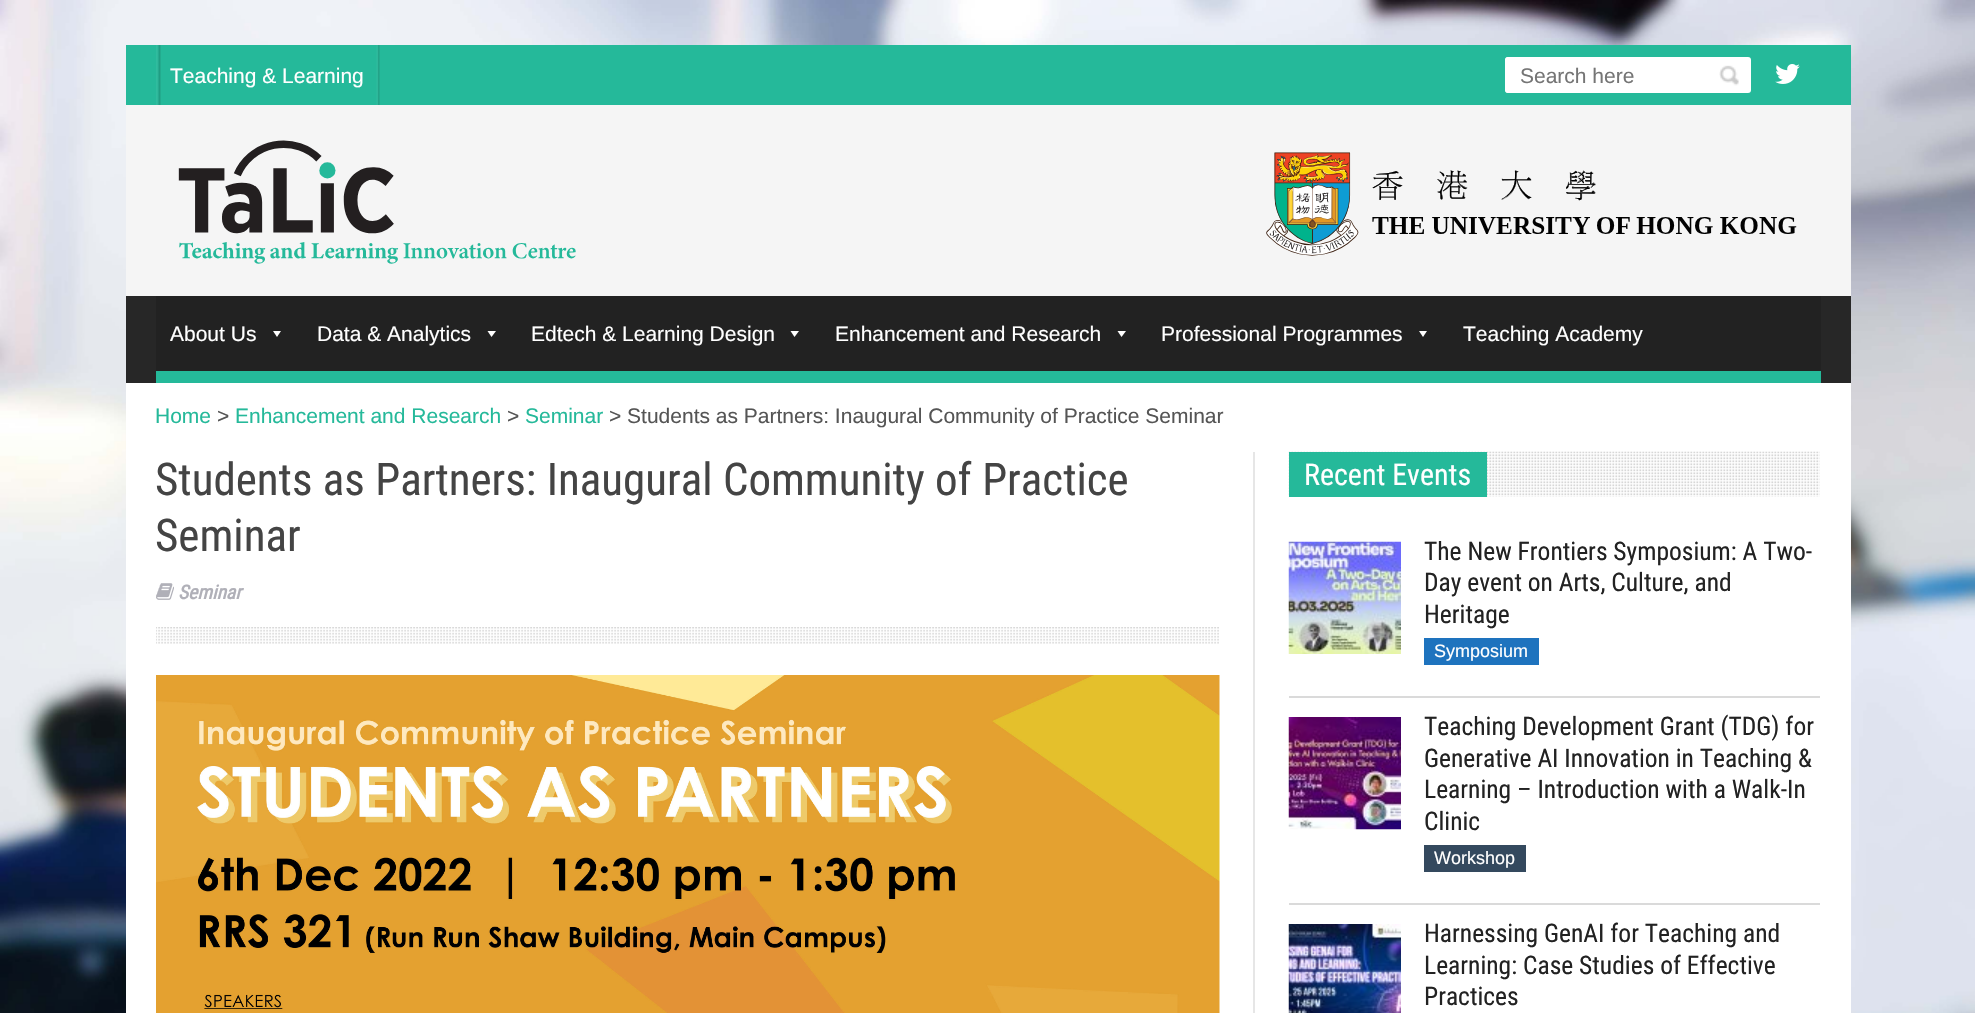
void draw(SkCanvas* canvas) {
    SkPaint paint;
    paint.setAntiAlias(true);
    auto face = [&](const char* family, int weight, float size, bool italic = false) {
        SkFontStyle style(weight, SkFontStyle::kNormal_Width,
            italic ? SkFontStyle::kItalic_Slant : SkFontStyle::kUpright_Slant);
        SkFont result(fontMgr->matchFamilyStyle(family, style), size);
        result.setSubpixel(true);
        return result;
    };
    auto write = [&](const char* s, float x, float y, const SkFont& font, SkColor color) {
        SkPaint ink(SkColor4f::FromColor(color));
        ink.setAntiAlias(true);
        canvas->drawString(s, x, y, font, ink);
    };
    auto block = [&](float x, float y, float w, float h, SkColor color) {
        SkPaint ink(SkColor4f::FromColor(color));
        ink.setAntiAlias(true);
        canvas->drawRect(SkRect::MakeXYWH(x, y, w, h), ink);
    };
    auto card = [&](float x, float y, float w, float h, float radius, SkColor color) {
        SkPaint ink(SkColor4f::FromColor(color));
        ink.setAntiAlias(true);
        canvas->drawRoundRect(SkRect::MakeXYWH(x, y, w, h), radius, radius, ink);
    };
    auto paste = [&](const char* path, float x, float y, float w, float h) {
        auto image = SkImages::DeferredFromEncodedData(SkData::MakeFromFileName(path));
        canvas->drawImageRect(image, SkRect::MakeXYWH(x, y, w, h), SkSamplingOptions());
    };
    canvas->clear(SK_ColorWHITE);
    paste("pic1.png", 0, 0, 1975, 1013);
    block(126, 383, 1725, 630, SK_ColorWHITE);
    block(126, 45, 1725, 60, SkColorSetRGB(37, 185, 154));
    paste("pic2.png", 156, 45, 5, 60);
    paste("pic3.png", 376, 45, 4, 60);
    auto kFont1 = face("Liberation Sans", 400, 21);
    write("Teaching & Learning", 170, 83, kFont1, SK_ColorWHITE);
    card(1505, 57, 246, 36, 3, SK_ColorWHITE);
    paint.setColor(SK_ColorWHITE);
    canvas->drawPath(SkPathBuilder().moveTo(1508, 57).lineTo(1700, 57).lineTo(1700, 93).lineTo(1508, 93).cubicTo(1506.5f, 93, 1505, 91.5f, 1505, 90).lineTo(1505, 60).cubicTo(1505, 58.5f, 1506.5f, 57, 1508, 57).close().detach(), paint);
    write("Search here", 1520, 83, kFont1, SkColorSetRGB(117, 117, 117));
    paste("pic4.png", 1719, 65, 20, 21);
    paste("pic5.png", 1775, 64, 25, 20);
    block(126, 105, 1725, 191, SkColorSetRGB(245, 245, 245));
    paste("pic6.png", 178, 140, 398, 124);
    paste("pic7.png", 1266, 152, 531, 104);
    block(126, 296, 1725, 87, SkColorSetRGB(39, 39, 39));
    block(156, 371, 1665, 12, SkColorSetRGB(37, 185, 154));
    block(156, 296, 1665, 75, SkColorSetRGB(34, 34, 34));
    write("About Us", 170, 341, kFont1, SK_ColorWHITE);
    canvas->drawPath(SkPathBuilder().moveTo(281, 331).lineTo(277, 337).lineTo(273, 331).close().detach(), paint);
    write("Data & Analytics", 317, 341, kFont1, SK_ColorWHITE);
    canvas->drawPath(SkPathBuilder().moveTo(496, 331).lineTo(491.5f, 337).lineTo(487.5f, 331).close().detach(), paint);
    write("Edtech & Learning Design", 531, 341, kFont1, SK_ColorWHITE);
    canvas->drawPath(SkPathBuilder().moveTo(799, 331).lineTo(794.5f, 337).lineTo(790.5f, 331).close().detach(), paint);
    write("Enhancement and Research", 835, 341, kFont1, SK_ColorWHITE);
    canvas->drawPath(SkPathBuilder().moveTo(1126, 331).lineTo(1121.5f, 337).lineTo(1117.5f, 331).close().detach(), paint);
    write("Professional Programmes", 1161, 341, kFont1, SK_ColorWHITE);
    canvas->drawPath(SkPathBuilder().moveTo(1427, 331).lineTo(1423, 337).lineTo(1419, 331).close().detach(), paint);
    write("Teaching Academy", 1463, 341, kFont1, SK_ColorWHITE);
    write("Home", 155, 423, kFont1, SkColorSetRGB(37, 185, 154));
    write(">", 217, 423, kFont1, SkColorSetRGB(85, 85, 85));
    write("Enhancement and Research", 235, 423, kFont1, SkColorSetRGB(37, 185, 154));
    write(">", 507, 423, kFont1, SkColorSetRGB(85, 85, 85));
    write("Seminar", 525, 423, kFont1, SkColorSetRGB(37, 185, 154));
    write("> Students as Partners: Inaugural Community of Practice Seminar", 609, 423, kFont1, SkColorSetRGB(85, 85, 85));
    block(1253, 452, 2, 561, SkColorSetRGB(230, 230, 230));
    paste("pic8.png", 156, 627, 1063, 17);
    auto kFont2 = face("Roboto Condensed", 400, 45);
    write("Students as Partners: Inaugural Community of Practice", 155, 495, kFont2, SkColorSetRGB(68, 68, 68));
    write("Seminar", 155, 551, kFont2, SkColorSetRGB(68, 68, 68));
    paste("pic9.png", 156, 583, 18, 17);
    auto kFont3 = face("Roboto Condensed", 700, 19.5f, true);
    write("Seminar", 178, 599, kFont3, SkColorSetRGB(176, 176, 184));
    paste("pic10.png", 156, 675, 1064, 338);
    paste("pic11.png", 1288, 451, 532, 46);
    block(1289, 452, 198, 45, SkColorSetRGB(37, 185, 154));
    auto kFont4 = face("Roboto Condensed", 400, 30);
    write("Recent Events", 1304, 485, kFont4, SK_ColorWHITE);
    block(1289, 696, 531, 2, SkColorSetRGB(218, 218, 218));
    paste("pic12.png", 1288, 541, 113, 113);
    auto kFont5 = face("Roboto Condensed", 400, 25.5f);
    write("The New Frontiers Symposium: A Two-", 1424, 560, kFont5, SkColorSetRGB(34, 34, 34));
    write("Day event on Arts, Culture, and", 1424, 591, kFont5, SkColorSetRGB(34, 34, 34));
    write("Heritage", 1424, 623, kFont5, SkColorSetRGB(34, 34, 34));
    block(1424, 638, 115, 27, SkColorSetRGB(30, 115, 190));
    auto kFont6 = face("Liberation Sans", 400, 18);
    write("Symposium", 1434, 657, kFont6, SK_ColorWHITE);
    block(1289, 903, 531, 2, SkColorSetRGB(218, 218, 218));
    paste("pic13.png", 1288, 717, 113, 113);
    write("Teaching Development Grant (TDG) for", 1424, 735, kFont5, SkColorSetRGB(34, 34, 34));
    write("Generative AI Innovation in Teaching &", 1424, 767, kFont5, SkColorSetRGB(34, 34, 34));
    write("Learning – Introduction with a Walk-In", 1424, 798, kFont5, SkColorSetRGB(34, 34, 34));
    write("Clinic", 1424, 830, kFont5, SkColorSetRGB(34, 34, 34));
    block(1424, 845, 102, 27, SkColorSetRGB(52, 73, 94));
    write("Workshop", 1434, 864, kFont6, SK_ColorWHITE);
    paste("pic14.png", 1288, 924, 113, 89);
    write("Harnessing GenAI for Teaching and", 1424, 942, kFont5, SkColorSetRGB(34, 34, 34));
    write("Learning: Case Studies of Effective", 1424, 974, kFont5, SkColorSetRGB(34, 34, 34));
    write("Practices", 1424, 1005, kFont5, SkColorSetRGB(34, 34, 34));
}
